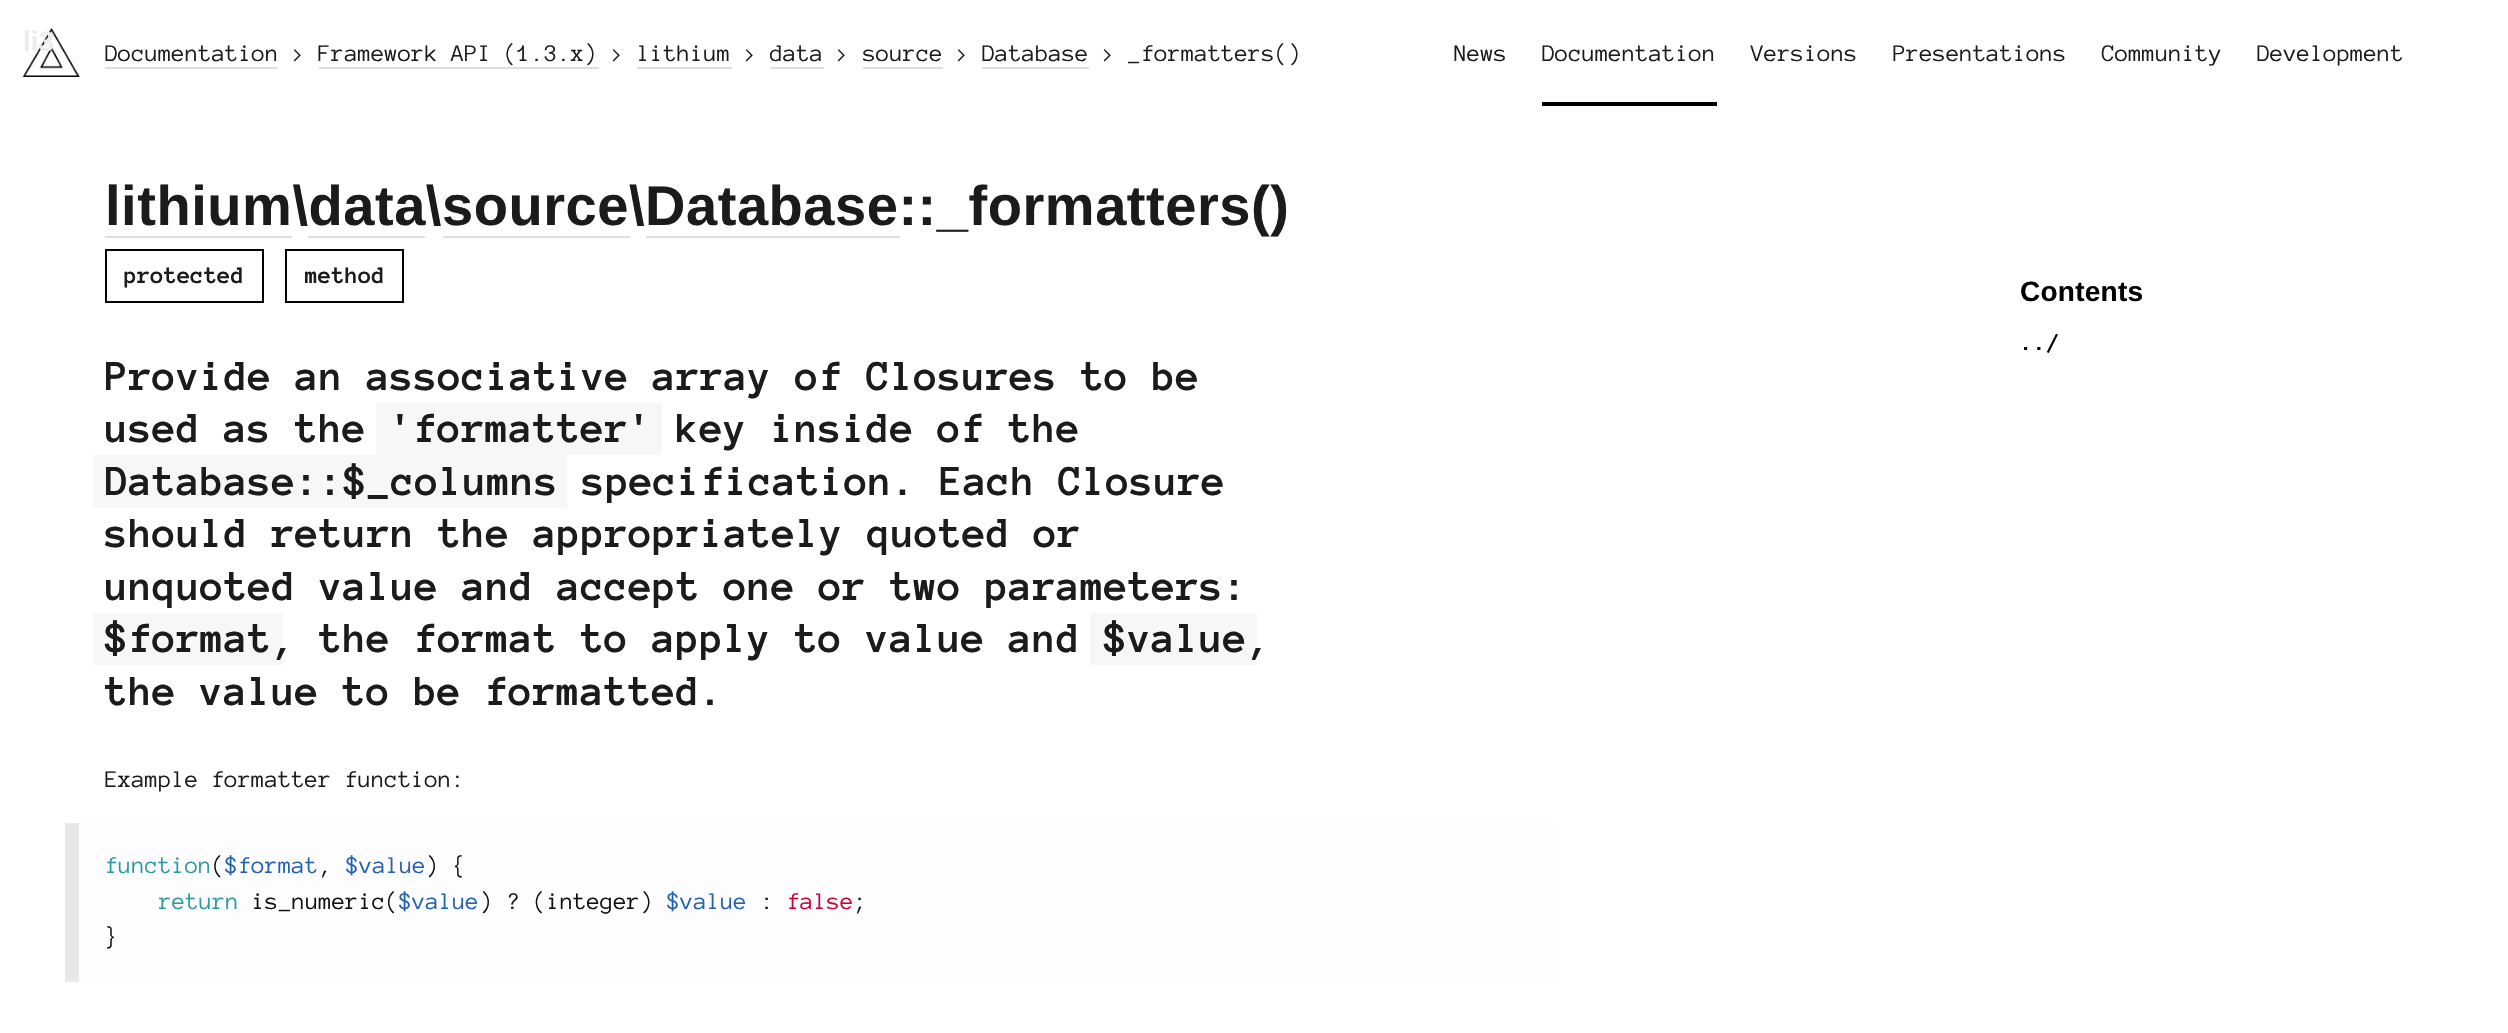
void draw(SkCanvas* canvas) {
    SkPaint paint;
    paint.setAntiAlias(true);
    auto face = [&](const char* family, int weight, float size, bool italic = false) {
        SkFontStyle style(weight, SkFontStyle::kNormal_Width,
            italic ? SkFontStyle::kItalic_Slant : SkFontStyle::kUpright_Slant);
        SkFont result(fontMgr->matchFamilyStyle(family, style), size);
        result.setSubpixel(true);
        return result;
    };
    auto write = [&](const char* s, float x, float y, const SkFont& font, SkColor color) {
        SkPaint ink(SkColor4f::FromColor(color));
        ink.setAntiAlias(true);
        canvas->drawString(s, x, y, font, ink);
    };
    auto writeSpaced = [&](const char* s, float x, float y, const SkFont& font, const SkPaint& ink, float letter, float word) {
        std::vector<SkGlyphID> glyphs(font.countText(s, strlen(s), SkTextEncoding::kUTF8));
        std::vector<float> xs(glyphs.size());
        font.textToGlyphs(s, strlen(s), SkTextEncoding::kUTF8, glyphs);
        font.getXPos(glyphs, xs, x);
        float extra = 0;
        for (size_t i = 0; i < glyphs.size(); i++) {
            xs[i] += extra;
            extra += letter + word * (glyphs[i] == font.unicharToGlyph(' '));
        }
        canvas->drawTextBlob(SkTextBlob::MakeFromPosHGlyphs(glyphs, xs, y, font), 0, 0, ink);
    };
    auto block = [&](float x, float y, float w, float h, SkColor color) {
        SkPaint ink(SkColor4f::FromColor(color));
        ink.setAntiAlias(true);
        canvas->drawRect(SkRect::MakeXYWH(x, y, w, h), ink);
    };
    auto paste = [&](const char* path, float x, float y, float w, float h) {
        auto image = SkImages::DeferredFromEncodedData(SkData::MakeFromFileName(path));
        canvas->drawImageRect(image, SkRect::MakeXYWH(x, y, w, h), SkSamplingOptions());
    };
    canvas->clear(SK_ColorWHITE);
    paste("pic1.png", 22, 28, 58, 49);
    auto kFont1 = face("Liberation Sans", 700, 28);
    write("li3", 23, 51, kFont1, SkColorSetRGB(236, 236, 236));
    auto kFont2 = face("Anonymous Pro", 400, 24.5f);
    write("News", 1454, 61, kFont2, SkColorSetRGB(27, 27, 27));
    write("Documentation", 1542, 61, kFont2, SkColorSetRGB(27, 27, 27));
    block(1542, 102, 175, 4, SK_ColorBLACK);
    write("Versions", 1751, 61, kFont2, SkColorSetRGB(27, 27, 27));
    write("Presentations", 1893, 61, kFont2, SkColorSetRGB(27, 27, 27));
    write("Community", 2102, 61, kFont2, SkColorSetRGB(27, 27, 27));
    write("Development", 2257, 61, kFont2, SkColorSetRGB(27, 27, 27));
    write("Documentation", 105, 61, kFont2, SkColorSetRGB(27, 27, 27));
    block(105, 67, 173, 2, SkColorSetRGB(222, 222, 222));
    write(">", 292, 61, kFont2, SkColorSetRGB(27, 27, 27));
    paint.setColor(SkColorSetRGB(27, 27, 27));
    writeSpaced("Framework API (1.3.x)", 318, 61, kFont2, paint, 0, -0.5f);
    block(319, 67, 280, 2, SkColorSetRGB(222, 222, 222));
    write(">", 611, 61, kFont2, SkColorSetRGB(27, 27, 27));
    write("lithium", 637, 61, kFont2, SkColorSetRGB(27, 27, 27));
    block(637, 67, 95, 2, SkColorSetRGB(222, 222, 222));
    write(">", 744, 61, kFont2, SkColorSetRGB(27, 27, 27));
    write("data", 770, 61, kFont2, SkColorSetRGB(27, 27, 27));
    block(770, 67, 54, 2, SkColorSetRGB(222, 222, 222));
    write(">", 836, 61, kFont2, SkColorSetRGB(27, 27, 27));
    write("source", 863, 61, kFont2, SkColorSetRGB(27, 27, 27));
    block(863, 67, 80, 2, SkColorSetRGB(222, 222, 222));
    write(">", 956, 61, kFont2, SkColorSetRGB(27, 27, 27));
    write("Database", 982, 61, kFont2, SkColorSetRGB(27, 27, 27));
    block(982, 67, 107, 2, SkColorSetRGB(222, 222, 222));
    write(">", 1102, 61, kFont2, SkColorSetRGB(27, 27, 27));
    write("_formatters()", 1128, 61, kFont2, SkColorSetRGB(27, 27, 27));
    block(105, 236, 187, 2, SkColorSetRGB(222, 222, 222));
    auto kFont3 = face("Liberation Sans", 700, 56);
    writeSpaced("lithium\\data\\source\\Database::_formatters()", 105, 225, kFont3, paint, 0.55f, 0);
    block(308, 236, 117, 2, SkColorSetRGB(222, 222, 222));
    block(443, 236, 187, 2, SkColorSetRGB(222, 222, 222));
    block(646, 236, 254, 2, SkColorSetRGB(222, 222, 222));
    paint.setStyle(SkPaint::kStroke_Style);
    paint.setStrokeWidth(2);
    paint.setColor(SK_ColorBLACK);
    canvas->drawRect(SkRect::MakeXYWH(106, 250, 157, 52), paint);
    auto kFont4 = face("Anonymous Pro", 700, 24.5f);
    write("protected", 124, 283, kFont4, SkColorSetRGB(27, 27, 27));
    canvas->drawRect(SkRect::MakeXYWH(286, 250, 117, 52), paint);
    write("method", 305, 283, kFont4, SkColorSetRGB(27, 27, 27));
    auto kFont5 = face("Anonymous Pro", 700, 43.75f);
    paint.setStyle(SkPaint::kFill_Style);
    paint.setColor(SkColorSetRGB(27, 27, 27));
    writeSpaced("Provide an associative array of Closures to be", 105, 390, kFont5, paint, 0, -0.5f);
    writeSpaced("used as the", 105, 442, kFont5, paint, 0, -0.5f);
    block(376, 403, 286, 52, SkColorSetRGB(248, 247, 247));
    write("'formatter'", 390, 442, kFont5, SkColorSetRGB(27, 27, 27));
    writeSpaced("key inside of the", 676, 442, kFont5, paint, 0, -0.5f);
    block(93, 455, 474, 53, SkColorSetRGB(248, 247, 247));
    write("Database::$_columns", 105, 495, kFont5, SkColorSetRGB(27, 27, 27));
    writeSpaced("specification. Each Closure", 582, 495, kFont5, paint, 0, -0.5f);
    writeSpaced("should return the appropriately quoted or", 105, 547, kFont5, paint, 0, -0.5f);
    writeSpaced("unquoted value and accept one or two parameters:", 105, 600, kFont5, paint, 0, -0.5f);
    block(93, 613, 189, 52, SkColorSetRGB(248, 247, 247));
    write("$format", 105, 652, kFont5, SkColorSetRGB(27, 27, 27));
    writeSpaced(", the format to apply to value and", 272, 652, kFont5, paint, 0, -0.5f);
    block(1090, 613, 167, 52, SkColorSetRGB(248, 247, 247));
    write("$value,", 1104, 652, kFont5, SkColorSetRGB(27, 27, 27));
    writeSpaced("the value to be formatted.", 105, 705, kFont5, paint, 0, -0.5f);
    writeSpaced("Example formatter function:", 105, 787, kFont2, paint, 0, -0.5f);
    block(79, 823, 1480, 159, SkColorSetRGB(253, 252, 255));
    block(65, 823, 14, 159, SkColorSetRGB(232, 232, 232));
    write("function", 105, 873, kFont2, SkColorSetRGB(47, 153, 161));
    write("(", 212, 873, kFont2, SkColorSetRGB(17, 17, 17));
    write("$format", 225, 873, kFont2, SkColorSetRGB(32, 96, 173));
    write(",", 319, 873, kFont2, SkColorSetRGB(17, 17, 17));
    write("$value", 346, 873, kFont2, SkColorSetRGB(32, 96, 173));
    write(") {", 426, 873, kFont2, SkColorSetRGB(17, 17, 17));
    write("return", 159, 909, kFont2, SkColorSetRGB(47, 153, 161));
    write("is_numeric(", 252, 909, kFont2, SkColorSetRGB(17, 17, 17));
    write("$value", 399, 909, kFont2, SkColorSetRGB(32, 96, 173));
    write(") ? (integer)", 480, 909, kFont2, SkColorSetRGB(17, 17, 17));
    write("$value", 667, 909, kFont2, SkColorSetRGB(32, 96, 173));
    write(":", 761, 909, kFont2, SkColorSetRGB(17, 17, 17));
    write("false", 787, 909, kFont2, SkColorSetRGB(203, 5, 50));
    write(";", 854, 909, kFont2, SkColorSetRGB(17, 17, 17));
    write("}", 105, 944, kFont2, SkColorSetRGB(17, 17, 17));
    paint.setColor(SK_ColorBLACK);
    writeSpaced("Contents", 2020, 301, kFont1, paint, 0.25f, 0);
    write("../", 2020, 350, kFont4, SK_ColorBLACK);
}
